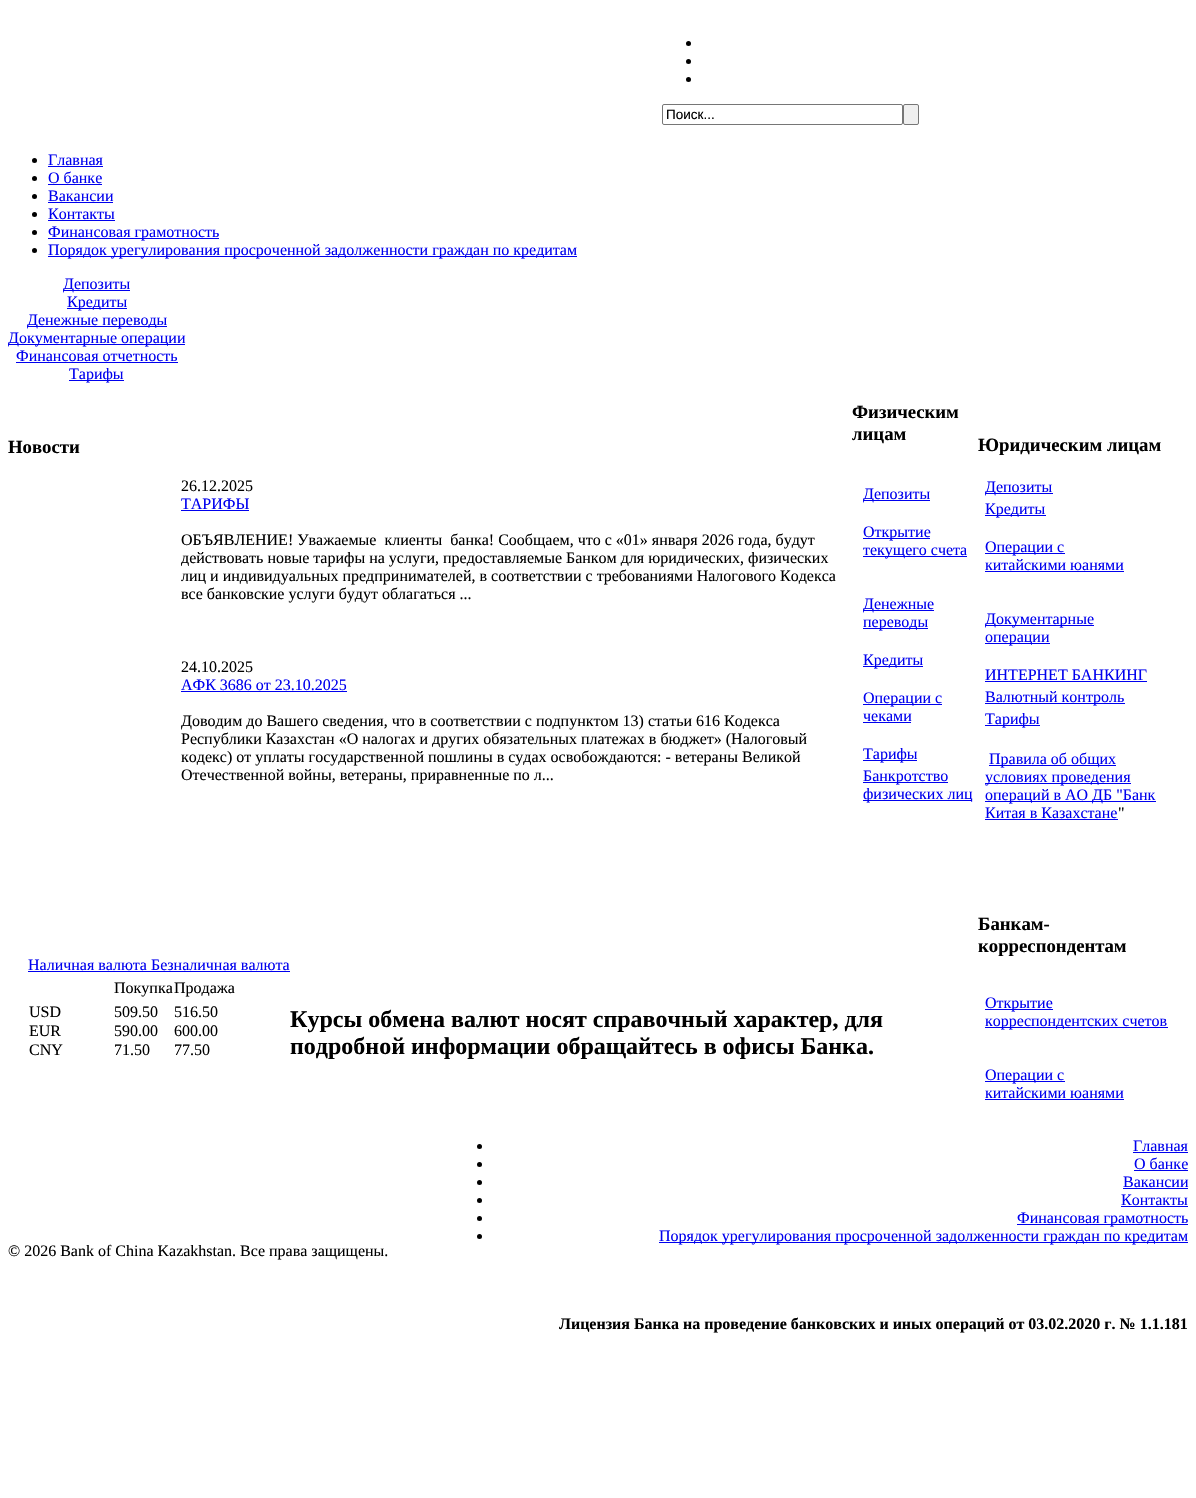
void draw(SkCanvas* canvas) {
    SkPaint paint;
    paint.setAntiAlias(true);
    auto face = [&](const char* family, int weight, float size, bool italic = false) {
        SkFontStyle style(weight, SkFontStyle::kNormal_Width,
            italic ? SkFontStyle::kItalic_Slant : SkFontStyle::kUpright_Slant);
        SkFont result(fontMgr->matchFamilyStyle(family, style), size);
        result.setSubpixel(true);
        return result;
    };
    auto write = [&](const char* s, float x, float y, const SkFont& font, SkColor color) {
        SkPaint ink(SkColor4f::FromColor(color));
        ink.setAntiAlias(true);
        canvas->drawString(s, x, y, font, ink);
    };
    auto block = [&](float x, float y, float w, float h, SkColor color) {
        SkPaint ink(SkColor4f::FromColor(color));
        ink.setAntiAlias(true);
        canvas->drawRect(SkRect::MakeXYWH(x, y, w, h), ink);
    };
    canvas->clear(SK_ColorWHITE);
    paint.setColor(SK_ColorBLACK);
    canvas->drawCircle(688.5f, 43.5f, 2.5f, paint);
    canvas->drawCircle(688.5f, 61.5f, 2.5f, paint);
    canvas->drawCircle(688.5f, 79.5f, 2.5f, paint);
    paint.setStyle(SkPaint::kStroke_Style);
    paint.setStrokeWidth(1);
    paint.setColor(SkColorSetRGB(118, 118, 118));
    canvas->drawRoundRect(SkRect::MakeXYWH(662.5f, 104.5f, 240, 20), 1.5f, 1.5f, paint);
    auto kFont1 = face("Liberation Sans", 400, 13.5f);
    write("Поиск...", 666, 119, kFont1, SK_ColorBLACK);
    paint.setStyle(SkPaint::kFill_Style);
    paint.setColor(SkColorSetRGB(239, 239, 239));
    canvas->drawRoundRect(SkRect::MakeXYWH(903.5f, 104.5f, 15, 20), 1.5f, 1.5f, paint);
    paint.setStyle(SkPaint::kStroke_Style);
    paint.setColor(SkColorSetRGB(118, 118, 118));
    canvas->drawRoundRect(SkRect::MakeXYWH(903.5f, 104.5f, 15, 20), 1.5f, 1.5f, paint);
    paint.setStyle(SkPaint::kFill_Style);
    paint.setColor(SK_ColorBLACK);
    canvas->drawCircle(34.5f, 160.5f, 2.5f, paint);
    auto kFont2 = face("Liberation Serif", 400, 16);
    write("Главная", 48, 165, kFont2, SkColorSetRGB(0, 0, 238));
    block(48, 166, 55, 1, SkColorSetRGB(0, 0, 238));
    canvas->drawCircle(34.5f, 178.5f, 2.5f, paint);
    write("О банке", 48, 183, kFont2, SkColorSetRGB(0, 0, 238));
    block(48, 184, 54, 1, SkColorSetRGB(0, 0, 238));
    canvas->drawCircle(34.5f, 196.5f, 2.5f, paint);
    write("Вакансии", 48, 201, kFont2, SkColorSetRGB(0, 0, 238));
    block(48, 202, 65, 1, SkColorSetRGB(0, 0, 238));
    canvas->drawCircle(34.5f, 214.5f, 2.5f, paint);
    write("Контакты", 48, 219, kFont2, SkColorSetRGB(0, 0, 238));
    block(48, 220, 67, 1, SkColorSetRGB(0, 0, 238));
    canvas->drawCircle(34.5f, 232.5f, 2.5f, paint);
    block(48, 238, 171, 1, SkColorSetRGB(0, 0, 238));
    write("Финансовая грамотность", 48, 237, kFont2, SkColorSetRGB(0, 0, 238));
    canvas->drawCircle(34.5f, 250.5f, 2.5f, paint);
    block(48, 256, 529, 1, SkColorSetRGB(0, 0, 238));
    write("Порядок урегулирования просроченной задолженности граждан по кредитам", 48, 255, kFont2, SkColorSetRGB(0, 0, 238));
    block(63, 290, 67, 1, SkColorSetRGB(0, 0, 238));
    write("Депозиты", 63, 289, kFont2, SkColorSetRGB(0, 0, 238));
    block(67, 308, 60, 1, SkColorSetRGB(0, 0, 238));
    write("Кредиты", 67, 307, kFont2, SkColorSetRGB(0, 0, 238));
    block(27, 326, 140, 1, SkColorSetRGB(0, 0, 238));
    write("Денежные переводы", 27, 325, kFont2, SkColorSetRGB(0, 0, 238));
    block(8, 344, 177, 1, SkColorSetRGB(0, 0, 238));
    write("Документарные операции", 8, 343, kFont2, SkColorSetRGB(0, 0, 238));
    write("Финансовая отчетность", 16, 361, kFont2, SkColorSetRGB(0, 0, 238));
    block(16, 362, 162, 1, SkColorSetRGB(0, 0, 238));
    block(69, 380, 55, 1, SkColorSetRGB(0, 0, 238));
    write("Тарифы", 69, 379, kFont2, SkColorSetRGB(0, 0, 238));
    auto kFont3 = face("Liberation Serif", 700, 18.75f);
    write("Новости", 8, 453, kFont3, SK_ColorBLACK);
    write("26.12.2025", 181, 491, kFont2, SK_ColorBLACK);
    write("ТАРИФЫ", 181, 509, kFont2, SkColorSetRGB(0, 0, 238));
    block(181, 510, 68, 1, SkColorSetRGB(0, 0, 238));
    write("ОБЪЯВЛЕНИЕ! Уважаемые  клиенты  банка! Сообщаем, что с «01» января 2026 года, будут", 181, 545, kFont2, SK_ColorBLACK);
    write("действовать новые тарифы на услуги, предоставляемые Банком для юридических, физических", 181, 563, kFont2, SK_ColorBLACK);
    write("лиц и индивидуальных предпринимателей, в соответствии с требованиями Налогового Кодекса", 181, 581, kFont2, SK_ColorBLACK);
    write("все банковские услуги будут облагаться ...", 181, 599, kFont2, SK_ColorBLACK);
    write("24.10.2025", 181, 672, kFont2, SK_ColorBLACK);
    write("АФК 3686 от 23.10.2025", 181, 690, kFont2, SkColorSetRGB(0, 0, 238));
    block(181, 691, 166, 1, SkColorSetRGB(0, 0, 238));
    write("Доводим до Вашего сведения, что в соответствии с подпунктом 13) статьи 616 Кодекса", 181, 726, kFont2, SK_ColorBLACK);
    write("Республики Казахстан «О налогах и других обязательных платежах в бюджет» (Налоговый", 181, 744, kFont2, SK_ColorBLACK);
    write("кодекс) от уплаты государственной пошлины в судах освобождаются: - ветераны Великой", 181, 762, kFont2, SK_ColorBLACK);
    write("Отечественной войны, ветераны, приравненные по л...", 181, 780, kFont2, SK_ColorBLACK);
    write("Физическим", 852, 418, kFont3, SK_ColorBLACK);
    write("лицам", 852, 440, kFont3, SK_ColorBLACK);
    block(863, 500, 67, 1, SkColorSetRGB(0, 0, 238));
    write("Депозиты", 863, 499, kFont2, SkColorSetRGB(0, 0, 238));
    block(863, 538, 67, 1, SkColorSetRGB(0, 0, 238));
    write("Открытие", 863, 537, kFont2, SkColorSetRGB(0, 0, 238));
    block(863, 556, 104, 1, SkColorSetRGB(0, 0, 238));
    write("текущего счета", 863, 555, kFont2, SkColorSetRGB(0, 0, 238));
    block(863, 610, 71, 1, SkColorSetRGB(0, 0, 238));
    write("Денежные", 863, 609, kFont2, SkColorSetRGB(0, 0, 238));
    block(863, 628, 65, 1, SkColorSetRGB(0, 0, 238));
    write("переводы", 863, 627, kFont2, SkColorSetRGB(0, 0, 238));
    block(863, 666, 60, 1, SkColorSetRGB(0, 0, 238));
    write("Кредиты", 863, 665, kFont2, SkColorSetRGB(0, 0, 238));
    block(863, 704, 79, 1, SkColorSetRGB(0, 0, 238));
    write("Операции с", 863, 703, kFont2, SkColorSetRGB(0, 0, 238));
    write("чеками", 863, 721, kFont2, SkColorSetRGB(0, 0, 238));
    block(863, 722, 48, 1, SkColorSetRGB(0, 0, 238));
    block(863, 760, 54, 1, SkColorSetRGB(0, 0, 238));
    write("Тарифы", 863, 759, kFont2, SkColorSetRGB(0, 0, 238));
    block(863, 782, 85, 1, SkColorSetRGB(0, 0, 238));
    write("Банкротство", 863, 781, kFont2, SkColorSetRGB(0, 0, 238));
    block(863, 800, 109, 1, SkColorSetRGB(0, 0, 238));
    write("физических лиц", 863, 799, kFont2, SkColorSetRGB(0, 0, 238));
    write("Юридическим лицам", 978, 451, kFont3, SK_ColorBLACK);
    block(985, 493, 68, 1, SkColorSetRGB(0, 0, 238));
    write("Депозиты", 985, 492, kFont2, SkColorSetRGB(0, 0, 238));
    block(985, 515, 61, 1, SkColorSetRGB(0, 0, 238));
    write("Кредиты", 985, 514, kFont2, SkColorSetRGB(0, 0, 238));
    block(985, 553, 80, 1, SkColorSetRGB(0, 0, 238));
    write("Операции с", 985, 552, kFont2, SkColorSetRGB(0, 0, 238));
    write("китайскими юанями", 985, 570, kFont2, SkColorSetRGB(0, 0, 238));
    block(985, 571, 139, 1, SkColorSetRGB(0, 0, 238));
    block(985, 625, 109, 1, SkColorSetRGB(0, 0, 238));
    write("Документарные", 985, 624, kFont2, SkColorSetRGB(0, 0, 238));
    block(985, 643, 65, 1, SkColorSetRGB(0, 0, 238));
    write("операции", 985, 642, kFont2, SkColorSetRGB(0, 0, 238));
    write("ИНТЕРНЕТ БАНКИНГ", 985, 680, kFont2, SkColorSetRGB(0, 0, 238));
    block(985, 681, 162, 1, SkColorSetRGB(0, 0, 238));
    block(985, 703, 140, 1, SkColorSetRGB(0, 0, 238));
    write("Валютный контроль", 985, 702, kFont2, SkColorSetRGB(0, 0, 238));
    block(985, 725, 55, 1, SkColorSetRGB(0, 0, 238));
    write("Тарифы", 985, 724, kFont2, SkColorSetRGB(0, 0, 238));
    block(989, 765, 127, 1, SkColorSetRGB(0, 0, 238));
    write("Правила об общих", 989, 764, kFont2, SkColorSetRGB(0, 0, 238));
    block(985, 783, 146, 1, SkColorSetRGB(0, 0, 238));
    write("условиях проведения", 985, 782, kFont2, SkColorSetRGB(0, 0, 238));
    block(985, 801, 171, 1, SkColorSetRGB(0, 0, 238));
    write("операций в АО ДБ \"Банк", 985, 800, kFont2, SkColorSetRGB(0, 0, 238));
    write("Китая в Казахстане", 985, 818, kFont2, SkColorSetRGB(0, 0, 238));
    block(985, 819, 133, 1, SkColorSetRGB(0, 0, 238));
    write("\"", 1118, 818, kFont2, SK_ColorBLACK);
    write("Наличная валюта Безналичная валюта", 28, 970, kFont2, SkColorSetRGB(0, 0, 238));
    block(28, 971, 262, 1, SkColorSetRGB(0, 0, 238));
    write("Покупка", 114, 993, kFont2, SK_ColorBLACK);
    write("Продажа", 174, 993, kFont2, SK_ColorBLACK);
    write("USD", 29, 1017, kFont2, SK_ColorBLACK);
    write("509.50", 114, 1017, kFont2, SK_ColorBLACK);
    write("516.50", 174, 1017, kFont2, SK_ColorBLACK);
    write("EUR", 29, 1036, kFont2, SK_ColorBLACK);
    write("590.00", 114, 1036, kFont2, SK_ColorBLACK);
    write("600.00", 174, 1036, kFont2, SK_ColorBLACK);
    write("CNY", 29, 1055, kFont2, SK_ColorBLACK);
    write("71.50", 114, 1055, kFont2, SK_ColorBLACK);
    write("77.50", 174, 1055, kFont2, SK_ColorBLACK);
    auto kFont4 = face("Liberation Serif", 700, 24);
    write("Курсы обмена валют носят справочный характер, для", 290, 1027, kFont4, SK_ColorBLACK);
    write("подробной информации обращайтесь в офисы Банка.", 290, 1054, kFont4, SK_ColorBLACK);
    write("Банкам-", 978, 930, kFont3, SK_ColorBLACK);
    write("корреспондентам", 978, 952, kFont3, SK_ColorBLACK);
    block(985, 1009, 68, 1, SkColorSetRGB(0, 0, 238));
    write("Открытие", 985, 1008, kFont2, SkColorSetRGB(0, 0, 238));
    block(985, 1027, 183, 1, SkColorSetRGB(0, 0, 238));
    write("корреспондентских счетов", 985, 1026, kFont2, SkColorSetRGB(0, 0, 238));
    block(985, 1081, 80, 1, SkColorSetRGB(0, 0, 238));
    write("Операции с", 985, 1080, kFont2, SkColorSetRGB(0, 0, 238));
    write("китайскими юанями", 985, 1098, kFont2, SkColorSetRGB(0, 0, 238));
    block(985, 1099, 139, 1, SkColorSetRGB(0, 0, 238));
    write("© 2026 Bank of China Kazakhstan. Все права защищены.", 8, 1256, kFont2, SK_ColorBLACK);
    canvas->drawCircle(479.5f, 1146.5f, 2.5f, paint);
    write("Главная", 1133, 1151, kFont2, SkColorSetRGB(0, 0, 238));
    block(1133, 1152, 55, 1, SkColorSetRGB(0, 0, 238));
    canvas->drawCircle(479.5f, 1164.5f, 2.5f, paint);
    write("О банке", 1134, 1169, kFont2, SkColorSetRGB(0, 0, 238));
    block(1134, 1170, 54, 1, SkColorSetRGB(0, 0, 238));
    canvas->drawCircle(479.5f, 1182.5f, 2.5f, paint);
    write("Вакансии", 1123, 1187, kFont2, SkColorSetRGB(0, 0, 238));
    block(1123, 1188, 65, 1, SkColorSetRGB(0, 0, 238));
    canvas->drawCircle(479.5f, 1200.5f, 2.5f, paint);
    write("Контакты", 1121, 1205, kFont2, SkColorSetRGB(0, 0, 238));
    block(1121, 1206, 67, 1, SkColorSetRGB(0, 0, 238));
    canvas->drawCircle(479.5f, 1218.5f, 2.5f, paint);
    block(1017, 1224, 171, 1, SkColorSetRGB(0, 0, 238));
    write("Финансовая грамотность", 1017, 1223, kFont2, SkColorSetRGB(0, 0, 238));
    canvas->drawCircle(479.5f, 1236.5f, 2.5f, paint);
    block(659, 1242, 529, 1, SkColorSetRGB(0, 0, 238));
    write("Порядок урегулирования просроченной задолженности граждан по кредитам", 659, 1241, kFont2, SkColorSetRGB(0, 0, 238));
    auto kFont5 = face("Liberation Serif", 700, 16);
    write("Лицензия Банка на проведение банковских и иных операций от 03.02.2020 г. № 1.1.181", 559, 1329, kFont5, SK_ColorBLACK);
}
